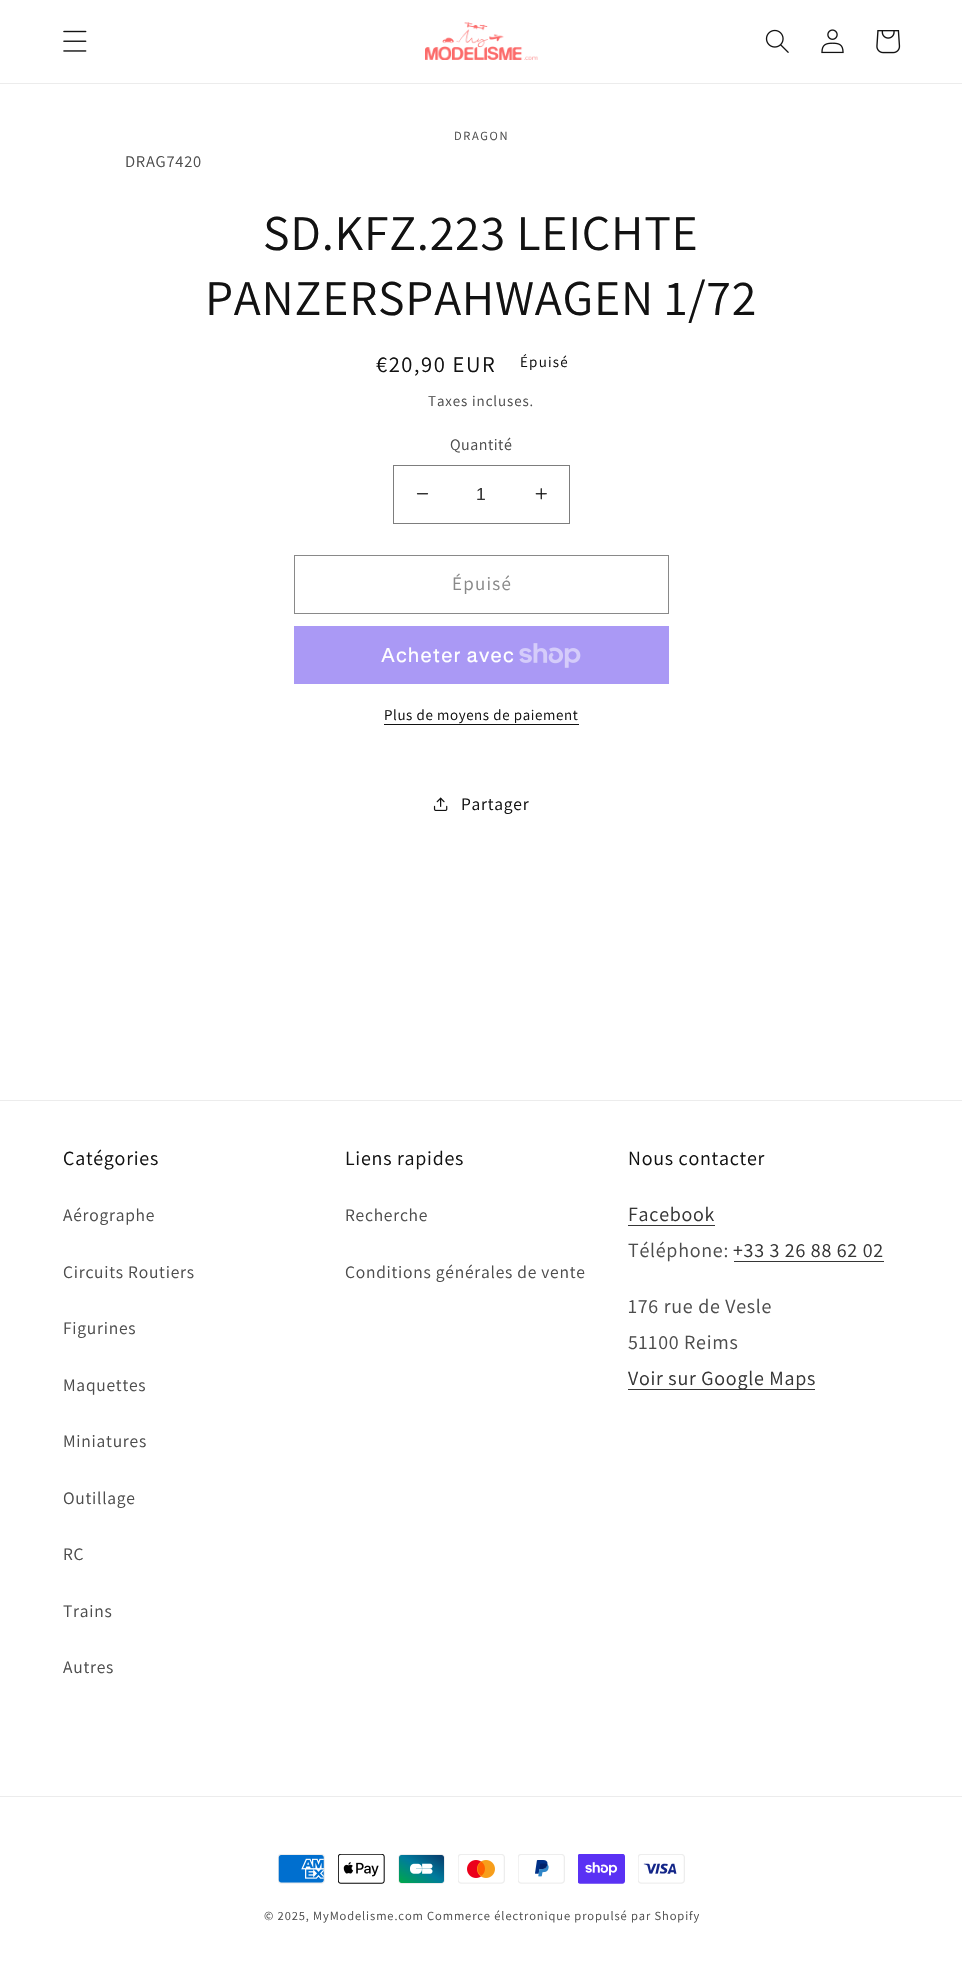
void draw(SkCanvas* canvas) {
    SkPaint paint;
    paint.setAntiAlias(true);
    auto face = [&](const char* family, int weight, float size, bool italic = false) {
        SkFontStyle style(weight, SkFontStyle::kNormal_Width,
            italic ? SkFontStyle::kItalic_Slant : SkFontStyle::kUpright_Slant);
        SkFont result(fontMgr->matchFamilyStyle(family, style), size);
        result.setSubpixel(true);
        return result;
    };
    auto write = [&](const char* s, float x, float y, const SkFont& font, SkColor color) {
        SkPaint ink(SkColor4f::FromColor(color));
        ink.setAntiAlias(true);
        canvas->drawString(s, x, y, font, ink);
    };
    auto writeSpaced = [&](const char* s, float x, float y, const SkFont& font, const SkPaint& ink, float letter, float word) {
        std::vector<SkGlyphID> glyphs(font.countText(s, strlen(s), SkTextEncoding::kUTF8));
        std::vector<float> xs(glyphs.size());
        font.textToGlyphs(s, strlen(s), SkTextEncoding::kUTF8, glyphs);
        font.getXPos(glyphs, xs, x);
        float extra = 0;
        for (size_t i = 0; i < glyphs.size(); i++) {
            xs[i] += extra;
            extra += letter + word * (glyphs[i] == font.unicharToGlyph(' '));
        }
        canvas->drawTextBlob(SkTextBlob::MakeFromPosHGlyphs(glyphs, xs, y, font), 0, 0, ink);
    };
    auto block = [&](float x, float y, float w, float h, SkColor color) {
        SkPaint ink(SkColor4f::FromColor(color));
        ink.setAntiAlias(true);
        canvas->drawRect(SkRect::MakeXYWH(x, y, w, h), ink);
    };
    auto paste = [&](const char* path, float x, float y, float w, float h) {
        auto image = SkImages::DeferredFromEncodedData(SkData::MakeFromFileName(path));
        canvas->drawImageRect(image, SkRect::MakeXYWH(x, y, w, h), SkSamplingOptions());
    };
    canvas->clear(SK_ColorWHITE);
    block(0, 83, 962, 1, SkColorSetRGB(236, 236, 236));
    paste("pic1.png", 63, 30, 24, 22);
    paste("pic2.png", 425, 22, 113, 38);
    paste("pic3.png", 765, 29, 24, 24);
    paste("pic4.png", 821, 29, 23, 25);
    paste("pic5.png", 876, 30, 25, 24);
    auto kFont1 = face("Assistant", 400, 12.5f);
    paint.setColor(SkColorSetRGB(77, 77, 77));
    writeSpaced("DRAGON", 454, 140, kFont1, paint, 1.6f, 0);
    auto kFont2 = face("Assistant", 400, 16.5f);
    writeSpaced("DRAG7420", 125, 167, kFont2, paint, 0.75f, 0);
    auto kFont3 = face("Assistant", 400, 50);
    paint.setColor(SkColorSetRGB(18, 18, 18));
    writeSpaced("SD.KFZ.223 LEICHTE", 263, 250, kFont3, paint, 0.75f, 0);
    writeSpaced("PANZERSPAHWAGEN 1/72", 205, 315, kFont3, paint, 0.75f, 0);
    auto kFont4 = face("Assistant", 400, 22.5f);
    writeSpaced("€20,90 EUR", 376, 372, kFont4, paint, 1.6f, 0);
    auto kFont5 = face("Assistant", 400, 15);
    writeSpaced("Épuisé", 520, 367, kFont5, paint, 1.25f, 0);
    paint.setColor(SkColorSetRGB(77, 77, 77));
    writeSpaced("Taxes incluses.", 428, 406, kFont5, paint, 0.9f, 0);
    auto kFont6 = face("Assistant", 400, 16);
    writeSpaced("Quantité", 450, 450, kFont6, paint, 0.5f, 0);
    paste("pic6.png", 416, 493, 13, 2);
    paste("pic7.png", 535, 488, 12, 12);
    paint.setStyle(SkPaint::kStroke_Style);
    paint.setStrokeWidth(1);
    paint.setColor(SkColorSetRGB(125, 125, 125));
    canvas->drawRect(SkRect::MakeXYWH(393.5f, 465.5f, 176, 58), paint);
    auto kFont7 = face("Liberation Sans", 400, 17.5f);
    write("1", 476, 500, kFont7, SkColorSetRGB(54, 54, 54));
    paint.setColor(SkColorSetRGB(137, 137, 137));
    canvas->drawRect(SkRect::MakeXYWH(294.5f, 555.5f, 374, 58), paint);
    auto kFont8 = face("Assistant", 400, 19);
    paint.setStyle(SkPaint::kFill_Style);
    writeSpaced("Épuisé", 452, 590, kFont8, paint, 1.25f, 0);
    block(294, 626, 375, 58, SkColorSetRGB(170, 153, 245));
    auto kFont9 = face("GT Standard", 400, 20);
    paint.setColor(SK_ColorWHITE);
    writeSpaced("Acheter avec", 381, 662, kFont9, paint, 0.75f, 0);
    paste("pic8.png", 519, 643, 62, 25);
    paint.setColor(SkColorSetRGB(18, 18, 18));
    writeSpaced("Plus de moyens de paiement", 384, 720, kFont5, paint, 0.6f, 0);
    block(384, 724, 195, 1, SkColorSetRGB(18, 18, 18));
    paste("pic9.png", 433, 797, 15, 14);
    auto kFont10 = face("Assistant", 400, 17.5f);
    writeSpaced("Partager", 461, 810, kFont10, paint, 0.75f, 0);
    block(0, 1100, 962, 1, SkColorSetRGB(236, 236, 236));
    auto kFont11 = face("Assistant", 400, 20);
    writeSpaced("Catégories", 63, 1165, kFont11, paint, 0.75f, 0);
    paint.setColor(SkColorSetRGB(77, 77, 77));
    writeSpaced("Aérographe", 63, 1221, kFont10, paint, 0.75f, 0);
    writeSpaced("Circuits Routiers", 63, 1278, kFont10, paint, 0.75f, 0);
    writeSpaced("Figurines", 63, 1334, kFont10, paint, 0.75f, 0);
    writeSpaced("Maquettes", 63, 1391, kFont10, paint, 0.75f, 0);
    writeSpaced("Miniatures", 63, 1447, kFont10, paint, 0.75f, 0);
    writeSpaced("Outillage", 63, 1504, kFont10, paint, 0.75f, 0);
    writeSpaced("RC", 63, 1560, kFont10, paint, 0.75f, 0);
    writeSpaced("Trains", 63, 1617, kFont10, paint, 0.75f, 0);
    writeSpaced("Autres", 63, 1673, kFont10, paint, 0.75f, 0);
    paint.setColor(SkColorSetRGB(18, 18, 18));
    writeSpaced("Liens rapides", 345, 1165, kFont11, paint, 0.75f, 0);
    paint.setColor(SkColorSetRGB(77, 77, 77));
    writeSpaced("Recherche", 345, 1221, kFont10, paint, 0.75f, 0);
    writeSpaced("Conditions générales de vente", 345, 1278, kFont10, paint, 0.75f, 0);
    paint.setColor(SkColorSetRGB(18, 18, 18));
    writeSpaced("Nous contacter", 628, 1165, kFont11, paint, 0.75f, 0);
    paint.setColor(SkColorSetRGB(54, 54, 54));
    writeSpaced("Facebook", 628, 1221, kFont11, paint, 0.75f, 0);
    block(628, 1225, 87, 1, SkColorSetRGB(54, 54, 54));
    paint.setColor(SkColorSetRGB(77, 77, 77));
    writeSpaced("Téléphone:", 628, 1257, kFont11, paint, 0.75f, 0);
    paint.setColor(SkColorSetRGB(54, 54, 54));
    writeSpaced("+33 3 26 88 62 02", 733, 1257, kFont11, paint, 0.75f, 0);
    block(734, 1261, 150, 1, SkColorSetRGB(54, 54, 54));
    paint.setColor(SkColorSetRGB(77, 77, 77));
    writeSpaced("176 rue de Vesle", 628, 1313, kFont11, paint, 0.75f, 0);
    writeSpaced("51100 Reims", 628, 1349, kFont11, paint, 0.75f, 0);
    block(628, 1389, 187, 1, SkColorSetRGB(54, 54, 54));
    paint.setColor(SkColorSetRGB(54, 54, 54));
    writeSpaced("Voir sur Google Maps", 628, 1385, kFont11, paint, 0.75f, 0);
    block(0, 1796, 962, 1, SkColorSetRGB(236, 236, 236));
    paste("pic10.png", 278, 1854, 47, 30);
    paste("pic11.png", 338, 1854, 47, 30);
    paste("pic12.png", 398, 1854, 47, 30);
    paste("pic13.png", 458, 1854, 47, 30);
    paste("pic14.png", 518, 1854, 47, 30);
    paste("pic15.png", 578, 1854, 47, 30);
    paste("pic16.png", 638, 1854, 47, 30);
    paint.setColor(SkColorSetRGB(77, 77, 77));
    writeSpaced("© 2025, MyModelisme.com", 264, 1920, kFont1, paint, 0.9f, 0);
    writeSpaced("Commerce électronique propulsé par Shopify", 427, 1920, kFont1, paint, 0.9f, 0);
}
